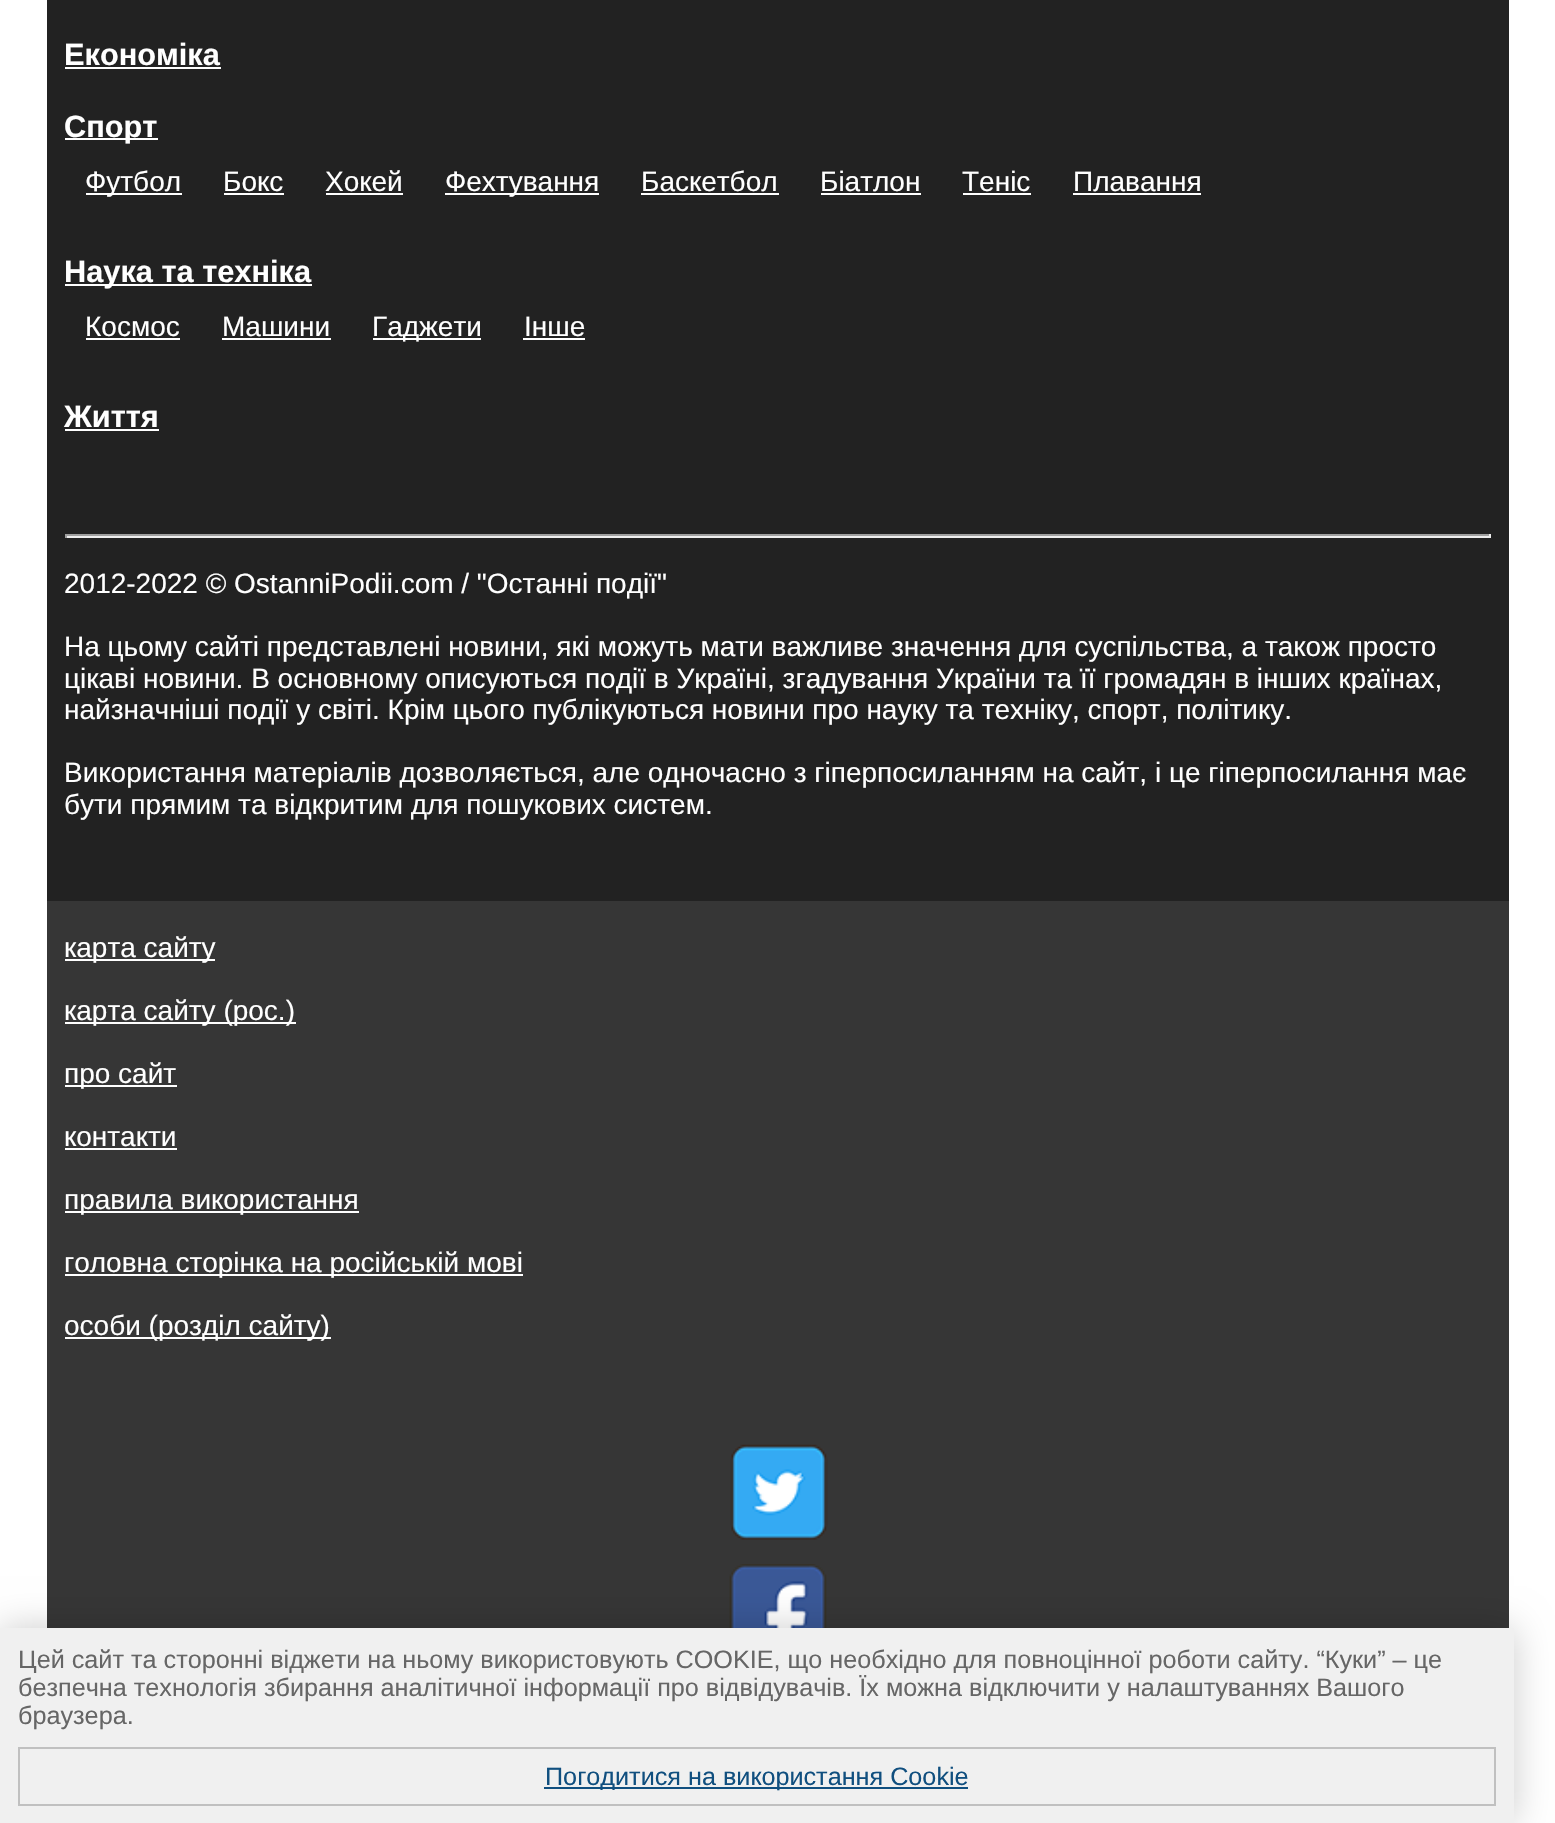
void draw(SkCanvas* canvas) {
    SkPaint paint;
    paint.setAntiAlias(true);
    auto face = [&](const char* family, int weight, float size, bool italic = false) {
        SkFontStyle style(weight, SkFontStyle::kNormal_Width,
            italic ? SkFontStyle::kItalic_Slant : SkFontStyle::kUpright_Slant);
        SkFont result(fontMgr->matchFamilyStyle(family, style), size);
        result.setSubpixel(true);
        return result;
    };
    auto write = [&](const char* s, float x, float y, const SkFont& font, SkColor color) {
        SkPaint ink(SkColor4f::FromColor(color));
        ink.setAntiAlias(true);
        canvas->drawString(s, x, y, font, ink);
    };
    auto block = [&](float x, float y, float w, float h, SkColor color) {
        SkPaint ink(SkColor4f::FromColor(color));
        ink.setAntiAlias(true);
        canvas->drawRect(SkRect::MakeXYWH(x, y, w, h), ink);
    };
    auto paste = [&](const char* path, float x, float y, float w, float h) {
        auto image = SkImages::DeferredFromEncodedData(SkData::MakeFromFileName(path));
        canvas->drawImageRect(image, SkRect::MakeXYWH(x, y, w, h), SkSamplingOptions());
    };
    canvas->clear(SK_ColorWHITE);
    block(47, 901, 1462, 727, SkColorSetRGB(54, 54, 54));
    block(47, 0, 1462, 901, SkColorSetRGB(34, 34, 34));
    auto kFont1 = face("Liberation Sans", 700, 30.75f);
    write("Економіка", 64, 65, kFont1, SK_ColorWHITE);
    block(65, 67, 156, 2, SK_ColorWHITE);
    block(65, 138, 93, 2, SK_ColorWHITE);
    write("Спорт", 64, 137, kFont1, SK_ColorWHITE);
    block(86, 193, 96, 2, SK_ColorWHITE);
    auto kFont2 = face("Liberation Sans", 400, 28);
    write("Футбол", 85, 191, kFont2, SK_ColorWHITE);
    write("Бокс", 223, 191, kFont2, SK_ColorWHITE);
    block(224, 193, 60, 2, SK_ColorWHITE);
    write("Хокей", 325, 191, kFont2, SK_ColorWHITE);
    block(326, 193, 77, 2, SK_ColorWHITE);
    block(445, 193, 154, 2, SK_ColorWHITE);
    write("Фехтування", 445, 191, kFont2, SK_ColorWHITE);
    write("Баскетбол", 641, 191, kFont2, SK_ColorWHITE);
    block(641, 193, 138, 2, SK_ColorWHITE);
    write("Біатлон", 820, 191, kFont2, SK_ColorWHITE);
    block(821, 193, 100, 2, SK_ColorWHITE);
    write("Теніс", 962, 191, kFont2, SK_ColorWHITE);
    block(963, 193, 68, 2, SK_ColorWHITE);
    write("Плавання", 1073, 191, kFont2, SK_ColorWHITE);
    block(1073, 193, 128, 2, SK_ColorWHITE);
    block(65, 284, 247, 2, SK_ColorWHITE);
    write("Наука та техніка", 64, 282, kFont1, SK_ColorWHITE);
    write("Космос", 85, 336, kFont2, SK_ColorWHITE);
    block(86, 338, 94, 2, SK_ColorWHITE);
    write("Машини", 222, 336, kFont2, SK_ColorWHITE);
    block(222, 338, 109, 2, SK_ColorWHITE);
    block(373, 338, 108, 2, SK_ColorWHITE);
    write("Гаджети", 372, 336, kFont2, SK_ColorWHITE);
    write("Інше", 524, 336, kFont2, SK_ColorWHITE);
    block(523, 338, 62, 2, SK_ColorWHITE);
    write("Життя", 64, 427, kFont1, SK_ColorWHITE);
    block(65, 429, 94, 2, SK_ColorWHITE);
    block(65, 534, 1426, 2, SkColorSetRGB(159, 159, 159));
    block(1489, 534, 2, 4, SkColorSetRGB(238, 238, 238));
    block(65, 536, 1426, 2, SkColorSetRGB(238, 238, 238));
    block(65, 534, 2, 4, SkColorSetRGB(159, 159, 159));
    write("2012-2022 © OstanniPodii.com / \"Останні події\"", 64, 593, kFont2, SK_ColorWHITE);
    write("На цьому сайті представлені новини, які можуть мати важливе значення для суспільства, а також просто", 64, 656, kFont2, SK_ColorWHITE);
    write("цікаві новини. В основному описуються події в Україні, згадування України та її громадян в інших країнах,", 64, 688, kFont2, SK_ColorWHITE);
    write("найзначніші події у світі. Крім цього публікуються новини про науку та техніку, спорт, політику.", 64, 719, kFont2, SK_ColorWHITE);
    write("Використання матеріалів дозволяється, але одночасно з гіперпосиланням на сайт, і це гіперпосилання має", 64, 782, kFont2, SK_ColorWHITE);
    write("бути прямим та відкритим для пошукових систем.", 64, 814, kFont2, SK_ColorWHITE);
    block(65, 959, 150, 2, SK_ColorWHITE);
    write("карта сайту", 64, 957, kFont2, SK_ColorWHITE);
    block(65, 1022, 231, 2, SK_ColorWHITE);
    write("карта сайту (рос.)", 64, 1020, kFont2, SK_ColorWHITE);
    block(65, 1085, 112, 2, SK_ColorWHITE);
    write("про сайт", 64, 1083, kFont2, SK_ColorWHITE);
    write("контакти", 64, 1146, kFont2, SK_ColorWHITE);
    block(65, 1148, 112, 2, SK_ColorWHITE);
    block(65, 1211, 294, 2, SK_ColorWHITE);
    write("правила використання", 64, 1209, kFont2, SK_ColorWHITE);
    block(65, 1274, 458, 2, SK_ColorWHITE);
    write("головна сторінка на російській мові", 64, 1272, kFont2, SK_ColorWHITE);
    block(65, 1337, 266, 2, SK_ColorWHITE);
    write("особи (розділ сайту)", 64, 1335, kFont2, SK_ColorWHITE);
    paste("pic1.png", 730, 1444, 98, 96);
    paste("pic2.png", 729, 1564, 98, 64);
    paint.setColor(SkColorSetARGB(51, 0, 0, 0));
    paint.setMaskFilter(SkMaskFilter::MakeBlur(kNormal_SkBlurStyle, 17.5f));
    canvas->drawRect(SkRect::MakeXYWH(0, 1628, 1514, 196), paint);
    paint.setMaskFilter(nullptr);
    block(0, 1628, 1514, 195, SkColorSetRGB(240, 240, 240));
    auto kFont3 = face("Liberation Sans", 400, 25.2f);
    write("Цей сайт та сторонні віджети на ньому використовують COOKIE, що необхідно для повноцінної роботи сайту. “Куки” – це", 18, 1668, kFont3, SkColorSetRGB(102, 102, 102));
    write("безпечна технологія збирання аналітичної інформації про відвідувачів. Їх можна відключити у налаштуваннях Вашого", 18, 1696, kFont3, SkColorSetRGB(102, 102, 102));
    write("браузера.", 18, 1724, kFont3, SkColorSetRGB(102, 102, 102));
    paint.setStyle(SkPaint::kStroke_Style);
    paint.setStrokeWidth(2);
    paint.setColor(SkColorSetRGB(192, 192, 192));
    canvas->drawRect(SkRect::MakeXYWH(19, 1748, 1476, 57), paint);
    block(544, 1787, 424, 2, SkColorSetRGB(16, 79, 127));
    write("Погодитися на використання Cookie", 545, 1785, kFont3, SkColorSetRGB(16, 79, 127));
}
